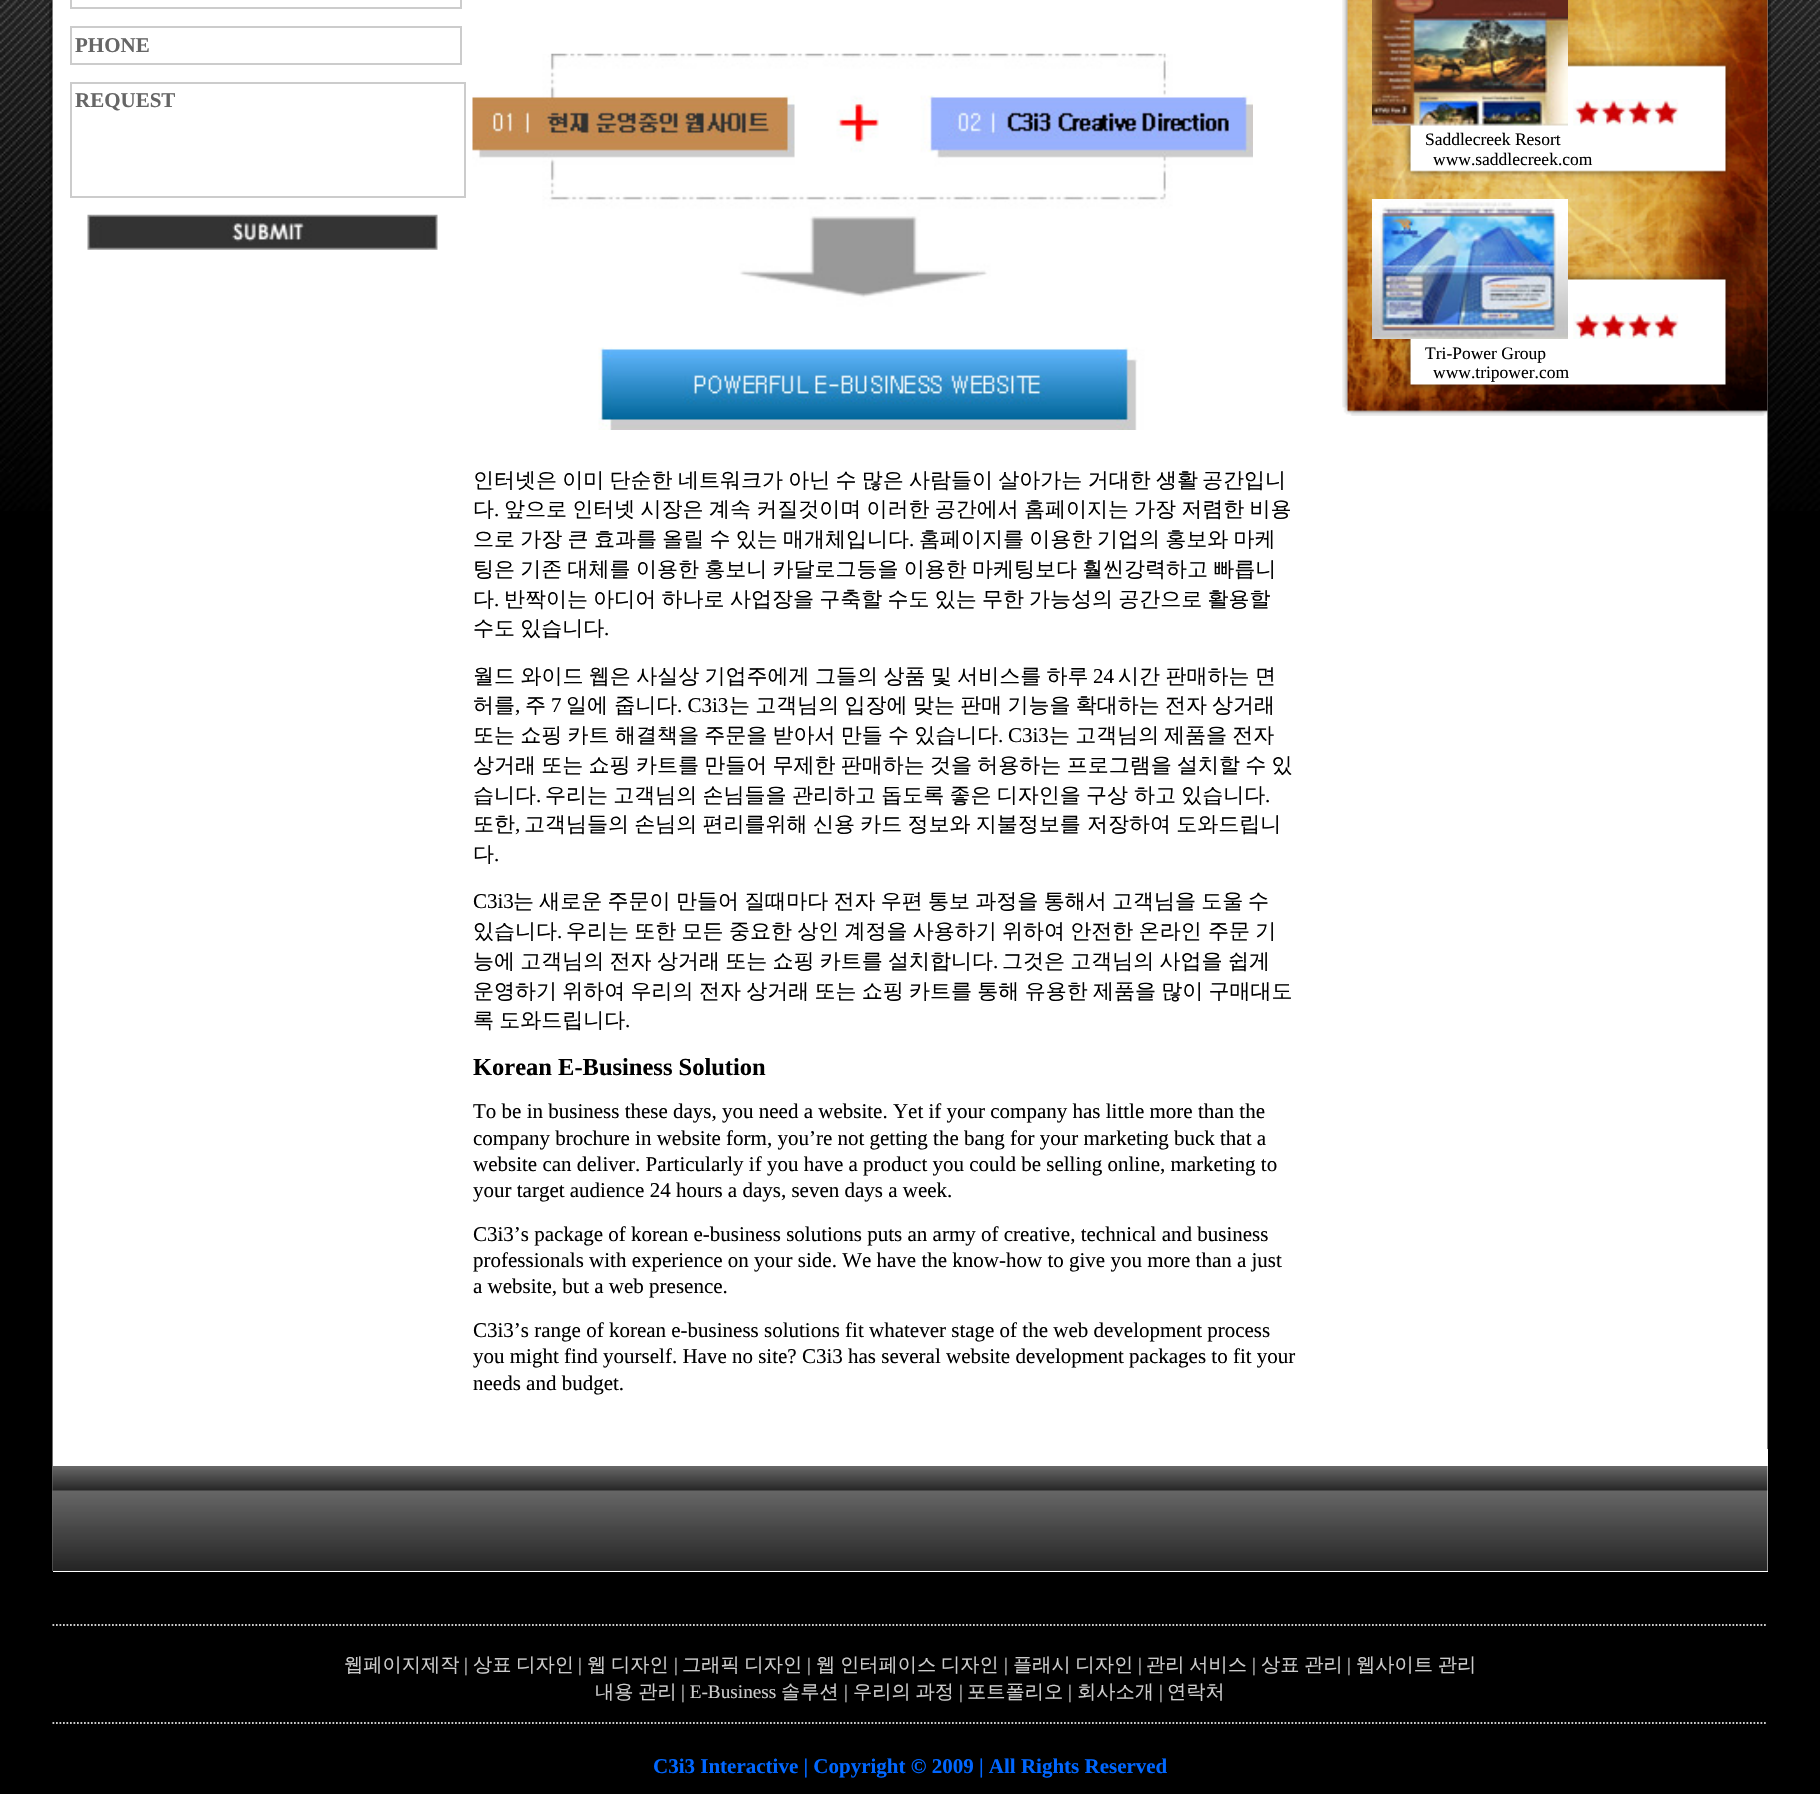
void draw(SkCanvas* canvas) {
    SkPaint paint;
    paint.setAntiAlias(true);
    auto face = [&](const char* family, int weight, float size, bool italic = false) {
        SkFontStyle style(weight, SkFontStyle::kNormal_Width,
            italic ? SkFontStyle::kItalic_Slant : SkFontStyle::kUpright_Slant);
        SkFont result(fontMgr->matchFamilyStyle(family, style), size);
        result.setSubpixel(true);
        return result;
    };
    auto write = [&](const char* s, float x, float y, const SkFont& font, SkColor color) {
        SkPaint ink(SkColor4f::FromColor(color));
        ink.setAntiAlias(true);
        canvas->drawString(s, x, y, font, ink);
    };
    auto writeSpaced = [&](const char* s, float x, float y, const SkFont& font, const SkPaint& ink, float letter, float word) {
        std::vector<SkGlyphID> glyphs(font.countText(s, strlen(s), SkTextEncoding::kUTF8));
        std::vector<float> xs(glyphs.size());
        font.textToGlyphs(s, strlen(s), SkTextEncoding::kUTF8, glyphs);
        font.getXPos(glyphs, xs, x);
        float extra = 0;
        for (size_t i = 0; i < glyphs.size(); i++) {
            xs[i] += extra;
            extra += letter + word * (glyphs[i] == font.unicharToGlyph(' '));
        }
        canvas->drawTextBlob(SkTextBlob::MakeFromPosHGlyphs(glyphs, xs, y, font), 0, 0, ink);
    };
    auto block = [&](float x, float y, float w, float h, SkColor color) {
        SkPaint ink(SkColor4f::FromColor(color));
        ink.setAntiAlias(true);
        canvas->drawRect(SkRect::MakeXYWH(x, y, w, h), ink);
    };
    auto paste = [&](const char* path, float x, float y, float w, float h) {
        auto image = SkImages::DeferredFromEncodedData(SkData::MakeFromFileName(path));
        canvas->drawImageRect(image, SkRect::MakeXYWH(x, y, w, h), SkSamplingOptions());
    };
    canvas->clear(SK_ColorBLACK);
    paste("pic1.png", 0, 0, 1820, 511);
    paste("pic2.png", 49, 0, 1722, 1571);
    paint.setStyle(SkPaint::kStroke_Style);
    paint.setStrokeWidth(2);
    paint.setColor(SkColorSetRGB(204, 204, 204));
    canvas->drawRect(SkRect::MakeXYWH(71, -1, 390, 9), paint);
    canvas->drawRect(SkRect::MakeXYWH(71, 27, 390, 37), paint);
    auto kFont1 = face("Liberation Serif", 700, 21);
    write("PHONE", 75, 52, kFont1, SkColorSetRGB(102, 102, 102));
    canvas->drawRect(SkRect::MakeXYWH(71, 83, 394, 114), paint);
    write("REQUEST", 75, 107, kFont1, SkColorSetRGB(102, 102, 102));
    paste("pic3.png", 87, 214, 351, 36);
    paste("pic4.png", 1342, 0, 426, 416);
    paste("pic5.png", 1372, 0, 196, 126);
    paste("pic6.png", 1573, 99, 106, 27);
    auto kFont2 = face("Liberation Serif", 400, 17.5f);
    write("Saddlecreek Resort", 1425, 145, kFont2, SK_ColorBLACK);
    write("www.saddlecreek.com", 1433, 165, kFont2, SK_ColorBLACK);
    paste("pic7.png", 1372, 199, 196, 140);
    paste("pic8.png", 1573, 313, 106, 26);
    write("Tri-Power Group", 1425, 359, kFont2, SK_ColorBLACK);
    write("www.tripower.com", 1433, 378, kFont2, SK_ColorBLACK);
    paste("pic9.png", 472, 53, 781, 377);
    auto kFont3 = face("WenQuanYi Zen Hei", 500, 21);
    paint.setStyle(SkPaint::kFill_Style);
    paint.setColor(SK_ColorBLACK);
    writeSpaced("인터넷은 이미 단순한 네트워크가 아닌 수 많은 사람들이 살아가는 거대한 생활", 473, 487, kFont3, paint, 0, -1);
    write("공간입니", 1202, 487, kFont3, SK_ColorBLACK);
    write("다", 473, 516, kFont3, SK_ColorBLACK);
    auto kFont4 = face("Liberation Serif", 400, 21);
    write(".", 494, 516, kFont4, SK_ColorBLACK);
    writeSpaced("앞으로 인터넷 시장은 계속 커질것이며 이러한 공간에서 홈페이지는", 504, 516, kFont3, paint, 0, -1);
    writeSpaced("가장 저렴한 비용", 1134, 516, kFont3, paint, 0, -1);
    writeSpaced("으로 가장 큰 효과를 올릴 수 있는 매개체입니다", 473, 546, kFont3, paint, 0, -1);
    write(".", 909, 546, kFont4, SK_ColorBLACK);
    writeSpaced("홈페이지를 이용한", 919, 546, kFont3, paint, 0, -1);
    writeSpaced("기업의 홍보와 마케", 1097, 546, kFont3, paint, 0, -1);
    writeSpaced("팅은 기존 대체를 이용한 홍보니 카달로그등을 이용한 마케팅보다", 473, 576, kFont3, paint, 0, -1);
    writeSpaced("훨씬강력하고 빠릅니", 1082, 576, kFont3, paint, 0, -1);
    write("다", 473, 606, kFont3, SK_ColorBLACK);
    write(".", 494, 606, kFont4, SK_ColorBLACK);
    writeSpaced("반짝이는 아디어 하나로 사업장을 구축할 수도 있는 무한", 504, 606, kFont3, paint, 0, -1);
    writeSpaced("가능성의 공간으로 활용할", 1029, 606, kFont3, paint, 0, -1);
    writeSpaced("수도 있습니다", 473, 635, kFont3, paint, 0, -1);
    write(".", 604, 635, kFont4, SK_ColorBLACK);
    writeSpaced("월드 와이드 웹은 사실상 기업주에게 그들의 상품 및 서비스를 하루", 473, 683, kFont3, paint, 0, -0.9f);
    write("24", 1093, 683, kFont4, SK_ColorBLACK);
    writeSpaced("시간 판매하는", 1118, 683, kFont3, paint, 0, -0.9f);
    write("면", 1255, 683, kFont3, SK_ColorBLACK);
    write("허를", 473, 712, kFont3, SK_ColorBLACK);
    write(",", 515, 712, kFont4, SK_ColorBLACK);
    write("주", 525, 712, kFont3, SK_ColorBLACK);
    write("7", 551, 712, kFont4, SK_ColorBLACK);
    write("일에 줍니다", 566, 712, kFont3, SK_ColorBLACK);
    write(". C3i3", 677, 712, kFont4, SK_ColorBLACK);
    writeSpaced("는 고객님의 입장에 맞는 판매 기능을 확대하는 전자", 729, 712, kFont3, paint, 0, -1);
    write("상거래", 1212, 712, kFont3, SK_ColorBLACK);
    writeSpaced("또는 쇼핑 카트 해결책을 주문을 받아서 만들 수 있습니다", 473, 742, kFont3, paint, 0, -1);
    write(".", 998, 742, kFont4, SK_ColorBLACK);
    write("C3i3", 1008, 742, kFont4, SK_ColorBLACK);
    writeSpaced("는 고객님의", 1049, 742, kFont3, paint, 0, -1);
    writeSpaced("제품을 전자", 1164, 742, kFont3, paint, 0, -1);
    writeSpaced("상거래 또는 쇼핑 카트를 만들어 무제한 판매하는 것을 허용하는 프로그램을 설치할 수 있", 473, 772, kFont3, paint, 0, -1);
    write("습니다", 473, 802, kFont3, SK_ColorBLACK);
    write(".", 536, 802, kFont4, SK_ColorBLACK);
    writeSpaced("우리는 고객님의 손님들을 관리하고 돕도록 좋은 디자인을 구상", 545, 802, kFont3, paint, 0, -1);
    writeSpaced("하고 있습니다", 1134, 802, kFont3, paint, 0, -1);
    write(".", 1265, 802, kFont4, SK_ColorBLACK);
    write("또한", 473, 831, kFont3, SK_ColorBLACK);
    write(",", 515, 831, kFont4, SK_ColorBLACK);
    writeSpaced("고객님들의 손님의 편리를위해 신용 카드 정보와 지불정보를", 524, 831, kFont3, paint, 0, -1);
    writeSpaced("저장하여 도와드립니", 1087, 831, kFont3, paint, 0, -1);
    write("다", 473, 861, kFont3, SK_ColorBLACK);
    write(".", 494, 861, kFont4, SK_ColorBLACK);
    write("C3i3", 473, 908, kFont4, SK_ColorBLACK);
    writeSpaced("는 새로운 주문이 만들어 질때마다 전자 우편 통보 과정을 통해서 고객님을 도울", 513, 908, kFont3, paint, 0, -1);
    write("수", 1248, 908, kFont3, SK_ColorBLACK);
    write("있습니다", 473, 938, kFont3, SK_ColorBLACK);
    write(".", 557, 938, kFont4, SK_ColorBLACK);
    writeSpaced("우리는 또한 모든 중요한 상인 계정을 사용하기 위하여 안전한 온라인", 566, 938, kFont3, paint, 0, -1);
    writeSpaced("주문 기", 1208, 938, kFont3, paint, 0, -1);
    writeSpaced("능에 고객님의 전자 상거래 또는 쇼핑 카트를 설치합니다", 473, 968, kFont3, paint, 0, -1);
    write(".", 993, 968, kFont4, SK_ColorBLACK);
    writeSpaced("그것은 고객님의 사업을 쉽게", 1002, 968, kFont3, paint, 0, -1);
    writeSpaced("운영하기 위하여 우리의 전자 상거래 또는 쇼핑 카트를 통해 유용한 제품을 많이 구매대도", 473, 998, kFont3, paint, 0, -1);
    writeSpaced("록 도와드립니다", 473, 1027, kFont3, paint, 0, -1);
    write(".", 625, 1027, kFont4, SK_ColorBLACK);
    auto kFont5 = face("Liberation Serif", 700, 24.5f);
    write("Korean E-Business Solution", 473, 1075, kFont5, SK_ColorBLACK);
    write("To be in business these days, you need a website. Yet if your company has little more than the", 473, 1118, kFont4, SK_ColorBLACK);
    write("company brochure in website form, you’re not getting the bang for your marketing buck that a", 473, 1145, kFont4, SK_ColorBLACK);
    write("website can deliver. Particularly if you have a product you could be selling online, marketing to", 473, 1171, kFont4, SK_ColorBLACK);
    write("your target audience 24 hours a days, seven days a week.", 473, 1197, kFont4, SK_ColorBLACK);
    write("C3i3’s package of korean e-business solutions puts an army of creative, technical and business", 473, 1241, kFont4, SK_ColorBLACK);
    write("professionals with experience on your side. We have the know-how to give you more than a just", 473, 1267, kFont4, SK_ColorBLACK);
    write("a website, but a web presence.", 473, 1293, kFont4, SK_ColorBLACK);
    write("C3i3’s range of korean e-business solutions fit whatever stage of the web development process", 473, 1337, kFont4, SK_ColorBLACK);
    write("you might find yourself. Have no site? C3i3 has several website development packages to fit your", 473, 1363, kFont4, SK_ColorBLACK);
    write("needs and budget.", 473, 1390, kFont4, SK_ColorBLACK);
    block(53, 1449, 1715, 123, SK_ColorWHITE);
    paste("pic10.png", 52, 1466, 1716, 105);
    paint.setStyle(SkPaint::kStroke_Style);
    paint.setStrokeWidth(1.8f);
    paint.setColor(SkColorSetRGB(204, 204, 204));
    paint.setPathEffect(SkDashPathEffect::Make({{1.75f, 1.75f}}, 0));
    canvas->drawPath(SkPathBuilder().moveTo(52.5f, 1625).lineTo(1767.5f, 1625).detach(), paint);
    paint.setPathEffect(nullptr);
    paint.setPathEffect(SkDashPathEffect::Make({{1.75f, 1.75f}}, 0));
    canvas->drawPath(SkPathBuilder().moveTo(52.5f, 1723).lineTo(1767.5f, 1723).detach(), paint);
    paint.setPathEffect(nullptr);
    auto kFont6 = face("WenQuanYi Zen Hei", 500, 19.25f);
    write("웹페이지제작", 344, 1671, kFont6, SkColorSetRGB(204, 204, 204));
    auto kFont7 = face("Liberation Serif", 400, 19.25f);
    write("|", 464, 1671, kFont7, SkColorSetRGB(204, 204, 204));
    paint.setStyle(SkPaint::kFill_Style);
    writeSpaced("상표 디자인", 473, 1671, kFont6, paint, 0, -1);
    write("|", 578, 1671, kFont7, SkColorSetRGB(204, 204, 204));
    writeSpaced("웹 디자인", 587, 1671, kFont6, paint, 0, -1);
    write("|", 674, 1671, kFont7, SkColorSetRGB(204, 204, 204));
    writeSpaced("그래픽 디자인", 682, 1671, kFont6, paint, 0, -1);
    write("|", 807, 1671, kFont7, SkColorSetRGB(204, 204, 204));
    writeSpaced("웹 인터페이스 디자인", 816, 1671, kFont6, paint, 0, -1);
    write("|", 1004, 1671, kFont7, SkColorSetRGB(204, 204, 204));
    writeSpaced("플래시 디자인", 1013, 1671, kFont6, paint, 0, -1);
    write("|", 1138, 1671, kFont7, SkColorSetRGB(204, 204, 204));
    writeSpaced("관리 서비스", 1146, 1671, kFont6, paint, 0, -1);
    write("|", 1252, 1671, kFont7, SkColorSetRGB(204, 204, 204));
    writeSpaced("상표 관리", 1261, 1671, kFont6, paint, 0, -1);
    write("|", 1347, 1671, kFont7, SkColorSetRGB(204, 204, 204));
    writeSpaced("웹사이트 관리", 1356, 1671, kFont6, paint, 0, -1);
    writeSpaced("내용 관리", 595, 1698, kFont6, paint, 0, -1);
    write("| E-Business", 681, 1698, kFont7, SkColorSetRGB(204, 204, 204));
    write("솔루션", 781, 1698, kFont6, SkColorSetRGB(204, 204, 204));
    write("|", 844, 1698, kFont7, SkColorSetRGB(204, 204, 204));
    writeSpaced("우리의 과정", 853, 1698, kFont6, paint, 0, -1);
    write("|", 959, 1698, kFont7, SkColorSetRGB(204, 204, 204));
    write("포트폴리오", 967, 1698, kFont6, SkColorSetRGB(204, 204, 204));
    write("|", 1068, 1698, kFont7, SkColorSetRGB(204, 204, 204));
    write("회사소개", 1077, 1698, kFont6, SkColorSetRGB(204, 204, 204));
    write("|", 1159, 1698, kFont7, SkColorSetRGB(204, 204, 204));
    write("연락처", 1167, 1698, kFont6, SkColorSetRGB(204, 204, 204));
    write("C3i3 Interactive | Copyright © 2009 | All Rights Reserved", 653, 1773, kFont1, SkColorSetRGB(0, 102, 255));
}
